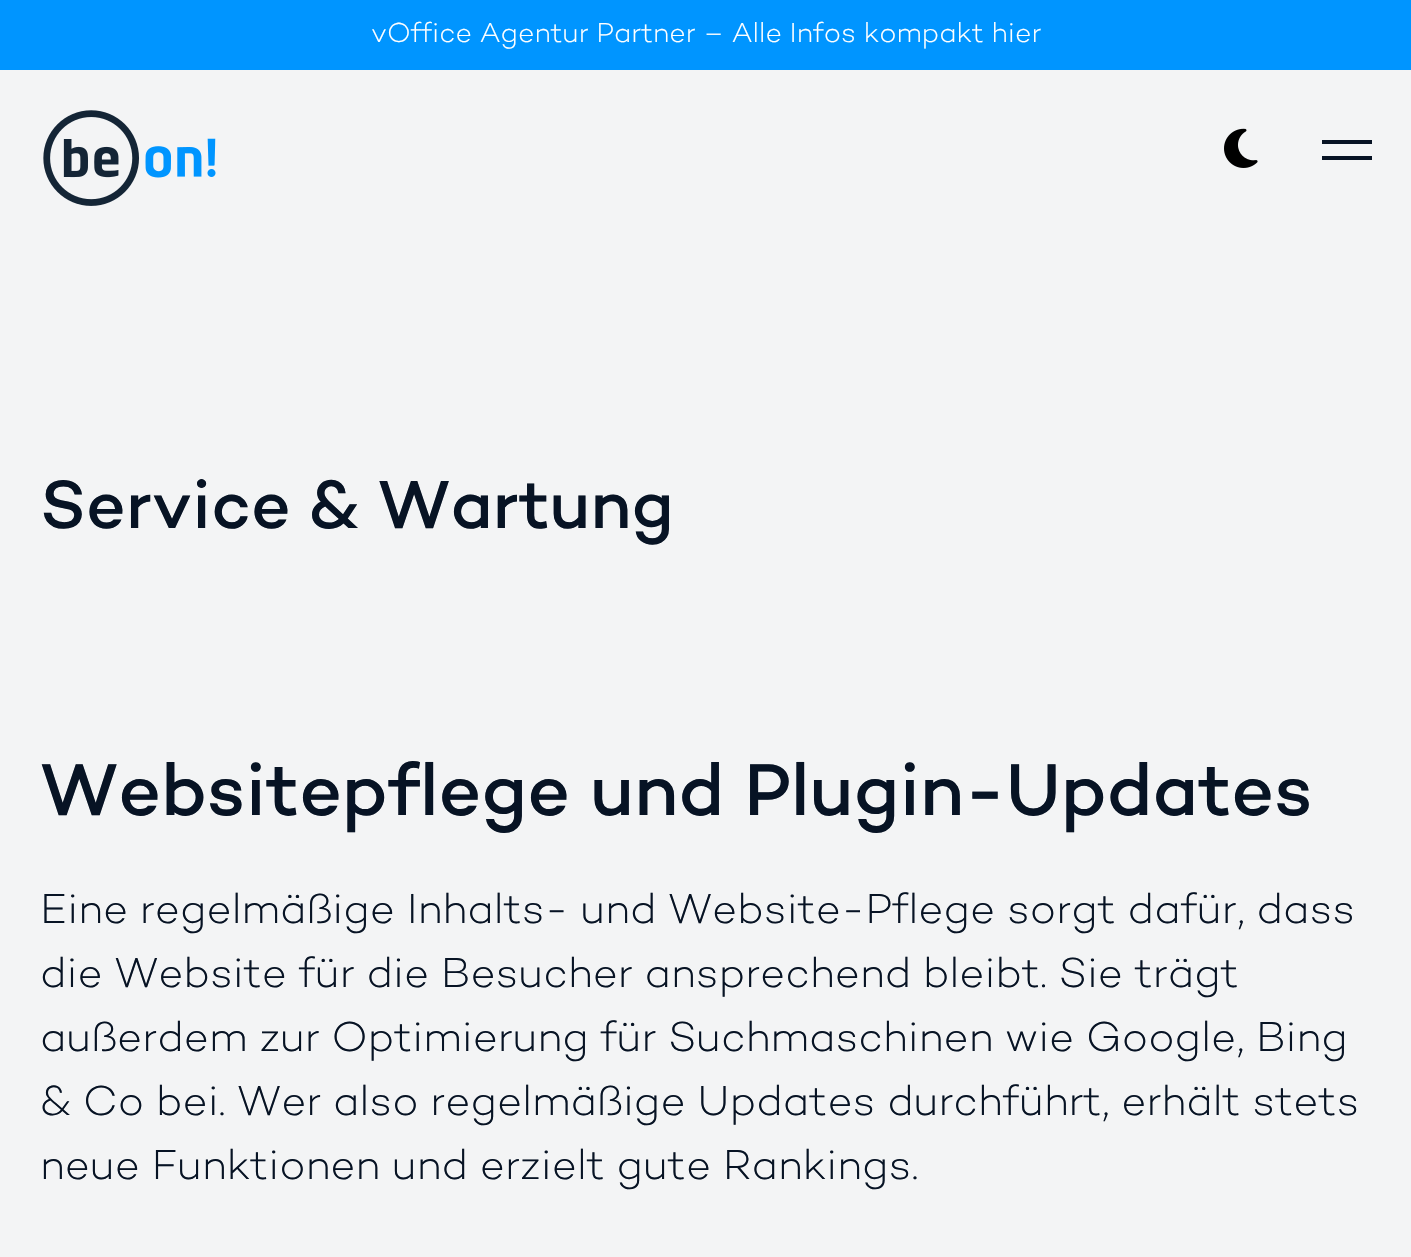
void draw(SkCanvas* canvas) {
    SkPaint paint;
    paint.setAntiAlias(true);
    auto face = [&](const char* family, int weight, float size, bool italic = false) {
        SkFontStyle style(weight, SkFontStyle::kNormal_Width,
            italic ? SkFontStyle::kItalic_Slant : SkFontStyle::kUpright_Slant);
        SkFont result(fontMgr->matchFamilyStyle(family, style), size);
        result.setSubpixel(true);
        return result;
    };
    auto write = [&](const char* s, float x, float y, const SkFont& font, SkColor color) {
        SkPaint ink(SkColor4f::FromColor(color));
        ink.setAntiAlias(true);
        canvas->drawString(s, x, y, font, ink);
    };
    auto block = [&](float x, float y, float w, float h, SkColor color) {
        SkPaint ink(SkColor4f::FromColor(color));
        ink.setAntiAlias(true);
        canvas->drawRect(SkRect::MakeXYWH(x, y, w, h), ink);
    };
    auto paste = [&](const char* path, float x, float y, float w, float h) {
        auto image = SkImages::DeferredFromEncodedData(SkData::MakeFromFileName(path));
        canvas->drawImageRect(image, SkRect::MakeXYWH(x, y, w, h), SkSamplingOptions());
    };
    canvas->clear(SkColorSetRGB(243, 244, 245));
    block(0, 0, 1411, 70, SkColorSetRGB(0, 149, 255));
    auto kFont1 = face("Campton", 300, 28);
    write("vOffice Agentur Partner – Alle Infos kompakt hier", 371, 42, kFont1, SK_ColorWHITE);
    paste("pic1.png", 43, 110, 173, 96);
    paste("pic2.png", 1224, 128, 34, 40);
    block(1322, 140, 50, 4, SkColorSetRGB(7, 19, 36));
    block(1322, 156, 50, 4, SkColorSetRGB(7, 19, 36));
    auto kFont2 = face("Campton", 500, 69.25f);
    write("Service & Wartung", 40, 528, kFont2, SkColorSetRGB(7, 19, 36));
    auto kFont3 = face("Campton", 500, 74.7f);
    write("Websitepflege und Plugin-Updates", 40, 815, kFont3, SkColorSetRGB(7, 19, 36));
    auto kFont4 = face("Campton", 300, 42.7f);
    write("Eine regelmäßige Inhalts- und Website-Pflege sorgt dafür, dass", 40, 923, kFont4, SkColorSetRGB(7, 19, 36));
    write("die Website für die Besucher ansprechend bleibt. Sie trägt", 40, 987, kFont4, SkColorSetRGB(7, 19, 36));
    write("außerdem zur Optimierung für Suchmaschinen wie Google, Bing", 40, 1051, kFont4, SkColorSetRGB(7, 19, 36));
    write("& Co bei. Wer also regelmäßige Updates durchführt, erhält stets", 40, 1115, kFont4, SkColorSetRGB(7, 19, 36));
    write("neue Funktionen und erzielt gute Rankings.", 40, 1179, kFont4, SkColorSetRGB(7, 19, 36));
}
